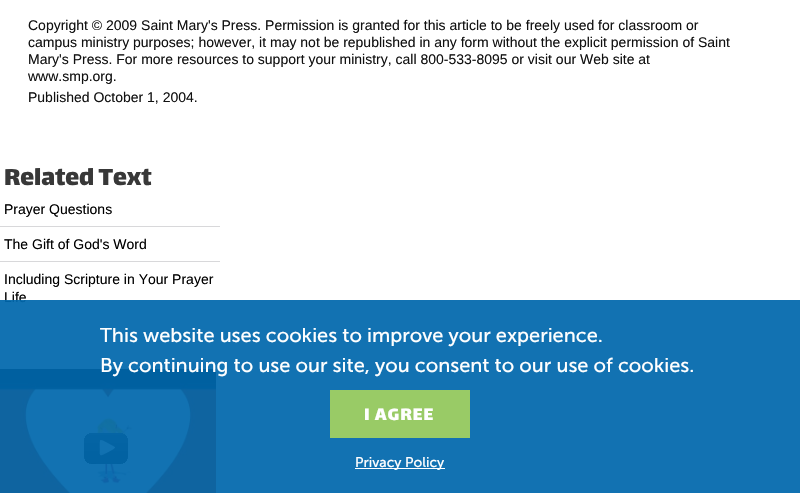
void draw(SkCanvas* canvas) {
    SkPaint paint;
    paint.setAntiAlias(true);
    auto face = [&](const char* family, int weight, float size, bool italic = false) {
        SkFontStyle style(weight, SkFontStyle::kNormal_Width,
            italic ? SkFontStyle::kItalic_Slant : SkFontStyle::kUpright_Slant);
        SkFont result(fontMgr->matchFamilyStyle(family, style), size);
        result.setSubpixel(true);
        return result;
    };
    auto write = [&](const char* s, float x, float y, const SkFont& font, SkColor color) {
        SkPaint ink(SkColor4f::FromColor(color));
        ink.setAntiAlias(true);
        canvas->drawString(s, x, y, font, ink);
    };
    auto writeSpaced = [&](const char* s, float x, float y, const SkFont& font, const SkPaint& ink, float letter, float word) {
        std::vector<SkGlyphID> glyphs(font.countText(s, strlen(s), SkTextEncoding::kUTF8));
        std::vector<float> xs(glyphs.size());
        font.textToGlyphs(s, strlen(s), SkTextEncoding::kUTF8, glyphs);
        font.getXPos(glyphs, xs, x);
        float extra = 0;
        for (size_t i = 0; i < glyphs.size(); i++) {
            xs[i] += extra;
            extra += letter + word * (glyphs[i] == font.unicharToGlyph(' '));
        }
        canvas->drawTextBlob(SkTextBlob::MakeFromPosHGlyphs(glyphs, xs, y, font), 0, 0, ink);
    };
    auto block = [&](float x, float y, float w, float h, SkColor color) {
        SkPaint ink(SkColor4f::FromColor(color));
        ink.setAntiAlias(true);
        canvas->drawRect(SkRect::MakeXYWH(x, y, w, h), ink);
    };
    auto paste = [&](const char* path, float x, float y, float w, float h) {
        auto image = SkImages::DeferredFromEncodedData(SkData::MakeFromFileName(path));
        canvas->drawImageRect(image, SkRect::MakeXYWH(x, y, w, h), SkSamplingOptions());
    };
    canvas->clear(SK_ColorWHITE);
    auto kFont1 = face("Liberation Sans", 400, 14);
    write("Copyright © 2009 Saint Mary's Press. Permission is granted for this article to be freely used for classroom or", 28, 30, kFont1, SkColorSetRGB(17, 17, 17));
    write("campus ministry purposes; however, it may not be republished in any form without the explicit permission of Saint", 28, 47, kFont1, SkColorSetRGB(17, 17, 17));
    write("Mary's Press. For more resources to support your ministry, call 800-533-8095 or visit our Web site at", 28, 64, kFont1, SkColorSetRGB(17, 17, 17));
    write("www.smp.org.", 28, 81, kFont1, SkColorSetRGB(17, 17, 17));
    write("Published October 1, 2004.", 28, 102, kFont1, SkColorSetRGB(17, 17, 17));
    auto kFont2 = face("Lalezar", 400, 28);
    write("Related Text", 4, 185, kFont2, SkColorSetRGB(56, 56, 56));
    block(0, 226, 220, 1, SkColorSetRGB(216, 216, 218));
    write("Prayer Questions", 4, 214, kFont1, SK_ColorBLACK);
    block(0, 261, 220, 1, SkColorSetRGB(216, 216, 218));
    write("The Gift of God's Word", 4, 249, kFont1, SK_ColorBLACK);
    write("Including Scripture in Your Prayer", 4, 284, kFont1, SK_ColorBLACK);
    write("Life", 4, 302, kFont1, SK_ColorBLACK);
    paste("pic1.png", 0, 369, 216, 124);
    paste("pic2.png", 84, 433, 44, 31);
    block(0, 300, 800, 193, SkColorSetARGB(237, 0, 103, 172));
    auto kFont3 = face("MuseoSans", 400, 20);
    write("This website uses cookies to improve your experience.", 100, 342, kFont3, SK_ColorWHITE);
    write("By continuing to use our site, you consent to our use of cookies.", 100, 372, kFont3, SK_ColorWHITE);
    block(330, 390, 140, 48, SkColorSetRGB(153, 203, 102));
    auto kFont4 = face("Lalezar", 400, 20);
    paint.setColor(SK_ColorWHITE);
    writeSpaced("I AGREE", 364, 420, kFont4, paint, 1, 0);
    block(355, 468, 90, 1, SK_ColorWHITE);
    auto kFont5 = face("MuseoSans", 400, 14);
    write("Privacy Policy", 355, 467, kFont5, SK_ColorWHITE);
}
